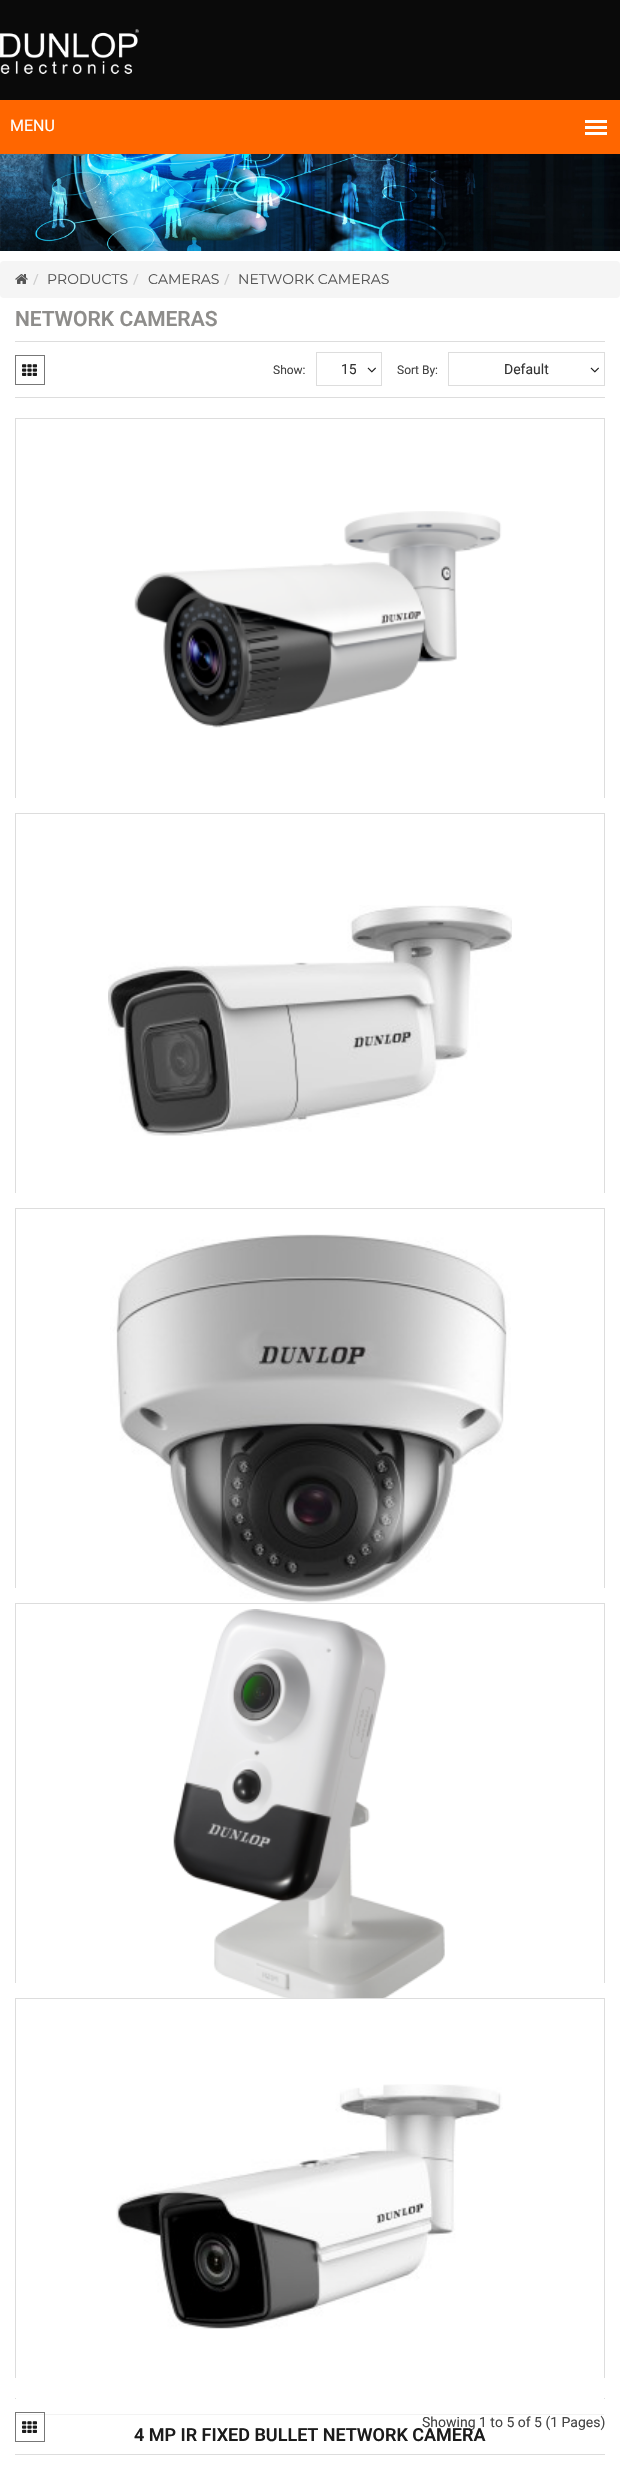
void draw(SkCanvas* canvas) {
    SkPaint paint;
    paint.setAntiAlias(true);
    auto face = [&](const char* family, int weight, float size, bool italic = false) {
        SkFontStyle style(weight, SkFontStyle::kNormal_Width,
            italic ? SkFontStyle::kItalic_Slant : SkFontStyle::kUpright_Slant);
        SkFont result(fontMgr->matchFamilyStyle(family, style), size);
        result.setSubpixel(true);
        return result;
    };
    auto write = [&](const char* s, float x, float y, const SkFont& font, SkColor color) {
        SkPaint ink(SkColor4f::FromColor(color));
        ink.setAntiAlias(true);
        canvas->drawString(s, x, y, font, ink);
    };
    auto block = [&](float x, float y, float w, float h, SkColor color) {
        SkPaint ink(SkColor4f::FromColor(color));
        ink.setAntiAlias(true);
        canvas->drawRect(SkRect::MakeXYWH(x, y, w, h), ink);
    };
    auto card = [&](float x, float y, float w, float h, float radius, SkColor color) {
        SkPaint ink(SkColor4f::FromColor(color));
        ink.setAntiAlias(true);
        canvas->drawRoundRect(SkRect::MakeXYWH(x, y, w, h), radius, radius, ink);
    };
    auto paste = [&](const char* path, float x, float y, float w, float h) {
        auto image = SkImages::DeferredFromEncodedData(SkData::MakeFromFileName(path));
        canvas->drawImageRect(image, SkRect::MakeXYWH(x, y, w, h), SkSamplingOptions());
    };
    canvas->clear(SK_ColorWHITE);
    block(0, 0, 620, 100, SkColorSetRGB(10, 10, 10));
    paste("pic1.png", 0, 29, 139, 45);
    block(0, 100, 620, 54, SkColorSetRGB(255, 102, 0));
    auto kFont1 = face("Roboto", 400, 16);
    write("MENU", 10, 131, kFont1, SK_ColorWHITE);
    block(585, 120, 22, 3, SK_ColorWHITE);
    block(585, 126, 22, 3, SK_ColorWHITE);
    block(585, 132, 22, 3, SK_ColorWHITE);
    paste("pic2.png", 0, 154, 620, 97);
    card(0, 261, 620, 37, 4, SkColorSetRGB(245, 245, 245));
    paste("pic3.png", 15, 274, 13, 10);
    auto kFont2 = face("Roboto", 400, 14);
    write("/", 33, 284, kFont2, SkColorSetRGB(204, 204, 204));
    auto kFont3 = face("Montserrat", 400, 14);
    write("PRODUCTS", 47, 284, kFont3, SkColorSetRGB(85, 85, 85));
    write("/", 133, 284, kFont2, SkColorSetRGB(204, 204, 204));
    write("CAMERAS", 148, 284, kFont3, SkColorSetRGB(85, 85, 85));
    write("/", 224, 284, kFont2, SkColorSetRGB(204, 204, 204));
    write("NETWORK CAMERAS", 238, 284, kFont3, SkColorSetRGB(85, 85, 85));
    auto kFont4 = face("Roboto", 600, 21);
    write("NETWORK CAMERAS", 15, 326, kFont4, SkColorSetRGB(142, 141, 139));
    block(15, 341, 590, 1, SkColorSetRGB(221, 221, 221));
    block(15, 397, 590, 1, SkColorSetRGB(221, 221, 221));
    paint.setStyle(SkPaint::kStroke_Style);
    paint.setStrokeWidth(1);
    paint.setColor(SkColorSetRGB(119, 119, 119));
    canvas->drawRect(SkRect::MakeXYWH(15.5f, 355.5f, 29, 29), paint);
    paste("pic4.png", 22, 364, 15, 12);
    auto kFont5 = face("Roboto", 400, 12);
    write("Show:", 273, 374, kFont5, SkColorSetRGB(68, 68, 68));
    paint.setColor(SkColorSetRGB(221, 221, 221));
    canvas->drawRect(SkRect::MakeXYWH(316.5f, 352.5f, 65, 33), paint);
    write("15", 341, 374, kFont2, SkColorSetRGB(51, 51, 51));
    paste("pic5.png", 367, 367, 9, 6);
    write("Sort By:", 397, 374, kFont5, SkColorSetRGB(68, 68, 68));
    canvas->drawRect(SkRect::MakeXYWH(448.5f, 352.5f, 156, 33), paint);
    write("Default", 504, 374, kFont2, SkColorSetRGB(51, 51, 51));
    paste("pic5.png", 590, 367, 9, 6);
    block(15, 2398, 590, 1, SkColorSetRGB(221, 221, 221));
    block(15, 2454, 590, 1, SkColorSetRGB(221, 221, 221));
    block(16, 2414, 588, 1, SkColorSetRGB(243, 243, 243));
    paint.setColor(SkColorSetRGB(119, 119, 119));
    canvas->drawRect(SkRect::MakeXYWH(15.5f, 2412.5f, 29, 29), paint);
    paste("pic4.png", 22, 2421, 15, 12);
    write("Showing 1 to 5 of 5 (1 Pages)", 422, 2427, kFont2, SkColorSetRGB(68, 68, 68));
    paint.setColor(SkColorSetRGB(221, 221, 221));
    canvas->drawRect(SkRect::MakeXYWH(15.5f, 418.5f, 589, 379), paint);
    block(16, 797, 588, 1, SK_ColorWHITE);
    paste("pic6.png", 134, 511, 368, 217);
    canvas->drawRect(SkRect::MakeXYWH(15.5f, 813.5f, 589, 379), paint);
    block(16, 1192, 588, 1, SK_ColorWHITE);
    paste("pic7.png", 108, 905, 404, 231);
    canvas->drawRect(SkRect::MakeXYWH(15.5f, 1208.5f, 589, 379), paint);
    block(16, 1587, 588, 1, SK_ColorWHITE);
    paste("pic8.png", 110, 1234, 401, 369);
    canvas->drawRect(SkRect::MakeXYWH(15.5f, 1603.5f, 589, 379), paint);
    block(16, 1982, 588, 1, SK_ColorWHITE);
    paste("pic9.png", 173, 1609, 272, 389);
    canvas->drawRect(SkRect::MakeXYWH(15.5f, 1998.5f, 589, 379), paint);
    block(16, 2377, 588, 22, SK_ColorWHITE);
    paste("pic10.png", 116, 2084, 387, 245);
    auto kFont6 = face("Roboto", 600, 18);
    write("4 MP IR FIXED BULLET NETWORK CAMERA", 134, 2441, kFont6, SkColorSetRGB(27, 27, 27));
}
